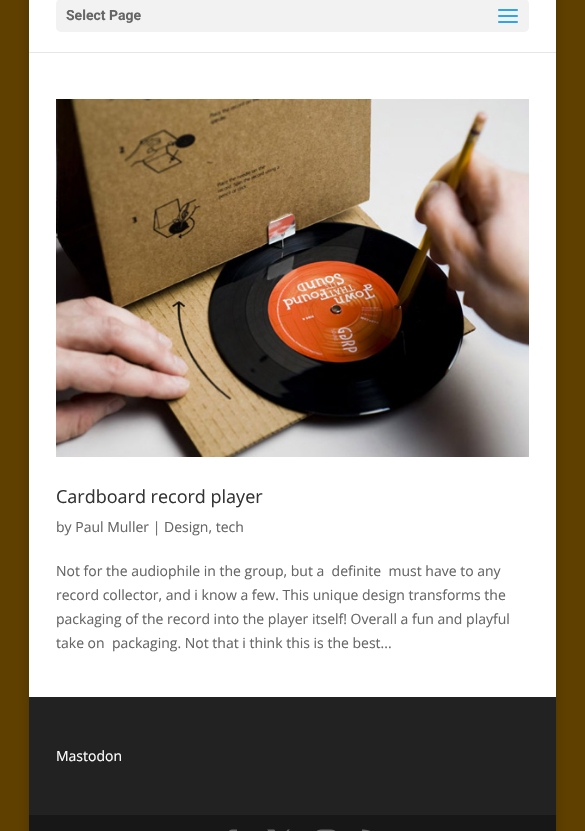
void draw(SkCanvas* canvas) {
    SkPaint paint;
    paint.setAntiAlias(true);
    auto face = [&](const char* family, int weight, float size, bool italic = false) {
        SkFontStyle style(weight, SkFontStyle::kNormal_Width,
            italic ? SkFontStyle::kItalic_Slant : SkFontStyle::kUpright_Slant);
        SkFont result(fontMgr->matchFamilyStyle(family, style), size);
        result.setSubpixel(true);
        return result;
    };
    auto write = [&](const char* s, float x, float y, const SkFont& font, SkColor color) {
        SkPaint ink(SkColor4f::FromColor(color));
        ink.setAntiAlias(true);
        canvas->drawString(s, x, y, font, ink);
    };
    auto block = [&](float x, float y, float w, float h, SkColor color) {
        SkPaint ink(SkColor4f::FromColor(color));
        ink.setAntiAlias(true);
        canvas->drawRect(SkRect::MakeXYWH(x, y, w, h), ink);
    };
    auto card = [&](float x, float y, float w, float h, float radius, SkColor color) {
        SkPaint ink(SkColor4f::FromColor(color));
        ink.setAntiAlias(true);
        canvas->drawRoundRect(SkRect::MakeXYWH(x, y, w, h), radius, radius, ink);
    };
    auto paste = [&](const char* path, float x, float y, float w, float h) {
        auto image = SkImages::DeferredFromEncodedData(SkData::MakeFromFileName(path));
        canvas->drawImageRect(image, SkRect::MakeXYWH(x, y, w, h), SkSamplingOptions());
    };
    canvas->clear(SkColorSetRGB(96, 64, 0));
    paint.setColor(SkColorSetARGB(51, 0, 0, 0));
    paint.setMaskFilter(SkMaskFilter::MakeBlur(kNormal_SkBlurStyle, 5));
    canvas->drawRect(SkRect::MakeXYWH(29, -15, 527, 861), paint);
    paint.setMaskFilter(nullptr);
    block(29, 52, 527, 1, SkColorSetRGB(230, 230, 230));
    block(29, 0, 527, 52, SK_ColorWHITE);
    card(56, -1, 473, 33, 5, SkColorSetRGB(242, 242, 242));
    auto kFont1 = face("Roboto", 700, 14);
    write("Select Page", 66, 20, kFont1, SkColorSetRGB(102, 102, 102));
    paste("pic1.png", 498, 9, 20, 14);
    block(29, 53, 527, 644, SK_ColorWHITE);
    paste("pic2.png", 56, 99, 473, 358);
    auto kFont2 = face("Open Sans", 400, 18);
    write("Cardboard record player", 56, 503, kFont2, SkColorSetRGB(51, 51, 51));
    auto kFont3 = face("Open Sans", 400, 14);
    write("by Paul Muller | Design, tech", 56, 532, kFont3, SkColorSetRGB(102, 102, 102));
    write("Not for the audiophile in the group, but a  definite  must have to any", 56, 576, kFont3, SkColorSetRGB(102, 102, 102));
    write("record collector, and i know a few. This unique design transforms the", 56, 600, kFont3, SkColorSetRGB(102, 102, 102));
    write("packaging of the record into the player itself! Overall a fun and playful", 56, 624, kFont3, SkColorSetRGB(102, 102, 102));
    write("take on  packaging. Not that i think this is the best...", 56, 648, kFont3, SkColorSetRGB(102, 102, 102));
    block(29, 697, 527, 118, SkColorSetRGB(34, 34, 34));
    write("Mastodon", 56, 761, kFont3, SK_ColorWHITE);
    block(29, 815, 527, 16, SkColorSetRGB(23, 23, 23));
    paste("pic3.png", 229, 829, 8, 2);
    paste("pic4.png", 267, 829, 23, 2);
    paste("pic5.png", 316, 829, 20, 2);
    paste("pic6.png", 362, 829, 8, 2);
}
